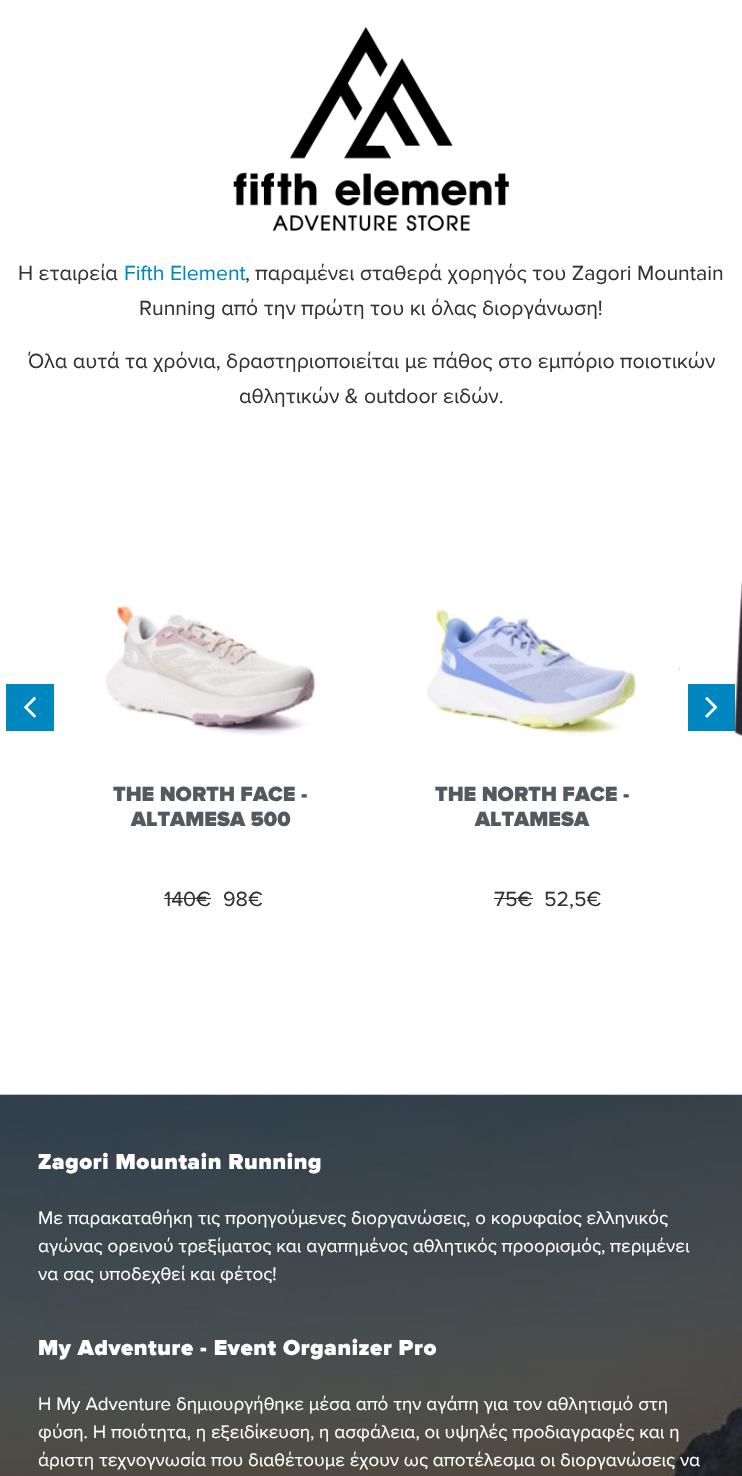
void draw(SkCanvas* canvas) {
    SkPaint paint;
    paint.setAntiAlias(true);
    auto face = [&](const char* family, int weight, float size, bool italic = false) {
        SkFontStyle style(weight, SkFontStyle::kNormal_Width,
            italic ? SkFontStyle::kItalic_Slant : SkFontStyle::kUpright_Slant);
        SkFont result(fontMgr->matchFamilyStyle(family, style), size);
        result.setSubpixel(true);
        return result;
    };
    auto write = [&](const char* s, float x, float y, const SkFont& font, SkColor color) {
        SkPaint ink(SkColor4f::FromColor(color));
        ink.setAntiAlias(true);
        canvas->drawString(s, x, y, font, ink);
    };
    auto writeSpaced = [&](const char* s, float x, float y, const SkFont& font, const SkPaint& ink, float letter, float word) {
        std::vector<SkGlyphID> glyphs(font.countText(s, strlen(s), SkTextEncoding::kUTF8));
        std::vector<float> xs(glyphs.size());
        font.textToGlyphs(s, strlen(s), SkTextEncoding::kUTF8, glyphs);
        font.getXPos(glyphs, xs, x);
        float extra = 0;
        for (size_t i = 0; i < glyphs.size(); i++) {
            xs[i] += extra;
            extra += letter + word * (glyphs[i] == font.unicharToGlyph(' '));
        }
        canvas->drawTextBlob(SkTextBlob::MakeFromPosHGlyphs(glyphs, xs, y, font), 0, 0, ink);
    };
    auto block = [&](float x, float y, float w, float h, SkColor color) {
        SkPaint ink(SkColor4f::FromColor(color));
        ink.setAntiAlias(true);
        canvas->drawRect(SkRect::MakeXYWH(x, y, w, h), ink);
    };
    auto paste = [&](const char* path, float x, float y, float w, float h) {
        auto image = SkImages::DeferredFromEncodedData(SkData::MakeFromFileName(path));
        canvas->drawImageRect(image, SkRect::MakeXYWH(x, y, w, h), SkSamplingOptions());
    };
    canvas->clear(SK_ColorWHITE);
    paste("pic1.png", 233, 27, 276, 204);
    auto kFont1 = face("Proxima Nova", 400, 21.25f);
    write("Η εταιρεία", 18, 280, kFont1, SkColorSetRGB(51, 51, 51));
    write("Fifth Element", 124, 280, kFont1, SkColorSetRGB(0, 135, 191));
    write(", παραμένει σταθερά χορηγός του Zagori Mountain", 245, 280, kFont1, SkColorSetRGB(51, 51, 51));
    write("Running από την πρώτη του κι όλας διοργάνωση!", 139, 315, kFont1, SkColorSetRGB(51, 51, 51));
    write("Όλα αυτά τα χρόνια, δραστηριοποιείται με πάθος στο εμπόριο ποιοτικών", 28, 368, kFont1, SkColorSetRGB(51, 51, 51));
    write("αθλητικών & outdoor ειδών.", 239, 403, kFont1, SkColorSetRGB(51, 51, 51));
    block(6, 684, 48, 47, SkColorSetRGB(0, 135, 191));
    paste("pic2.png", 24, 696, 12, 22);
    paste("pic4.png", 734, 580, 8, 157);
    block(688, 684, 47, 47, SkColorSetRGB(0, 135, 191));
    paste("pic3.png", 705, 696, 13, 22);
    paste("pic5.png", 105, 605, 211, 131);
    auto kFont2 = face("Proxima Nova", 900, 21.25f);
    write("THE NORTH FACE -", 113, 801, kFont2, SkColorSetRGB(84, 89, 95));
    write("ALTAMESA 500", 131, 826, kFont2, SkColorSetRGB(84, 89, 95));
    write("140€", 164, 906, kFont1, SkColorSetRGB(51, 51, 51));
    block(164, 898, 47, 1, SkColorSetRGB(51, 51, 51));
    write("98€", 223, 906, kFont1, SkColorSetRGB(51, 51, 51));
    paste("pic6.png", 427, 608, 254, 129);
    write("THE NORTH FACE -", 435, 801, kFont2, SkColorSetRGB(84, 89, 95));
    write("ALTAMESA", 475, 826, kFont2, SkColorSetRGB(84, 89, 95));
    write("75€", 494, 906, kFont1, SkColorSetRGB(51, 51, 51));
    block(494, 898, 39, 1, SkColorSetRGB(51, 51, 51));
    write("52,5€", 544, 906, kFont1, SkColorSetRGB(51, 51, 51));
    paste("pic7.png", 0, 1094, 742, 382);
    auto kFont3 = face("Proxima Nova", 900, 22.5f);
    paint.setColor(SK_ColorWHITE);
    writeSpaced("Zagori Mountain Running", 38, 1169, kFont3, paint, 0.6f, 0);
    auto kFont4 = face("Proxima Nova", 400, 18.75f);
    write("Με παρακαταθήκη τις προηγούμενες διοργανώσεις, ο κορυφαίος ελληνικός", 38, 1224, kFont4, SK_ColorWHITE);
    write("αγώνας ορεινού τρεξίματος και αγαπημένος αθλητικός προορισμός, περιμένει", 38, 1252, kFont4, SK_ColorWHITE);
    write("να σας υποδεχθεί και φέτος!", 38, 1280, kFont4, SK_ColorWHITE);
    writeSpaced("My Adventure - Event Organizer Pro", 38, 1355, kFont3, paint, 0.6f, 0);
    write("H My Adventure δημιουργήθηκε μέσα από την αγάπη για τον αθλητισμό στη", 38, 1410, kFont4, SK_ColorWHITE);
    write("φύση. Η ποιότητα, η εξειδίκευση, η ασφάλεια, οι υψηλές προδιαγραφές και η", 38, 1438, kFont4, SK_ColorWHITE);
    write("άριστη τεχνογνωσία που διαθέτουμε έχουν ως αποτέλεσμα οι διοργανώσεις να", 38, 1466, kFont4, SK_ColorWHITE);
}
